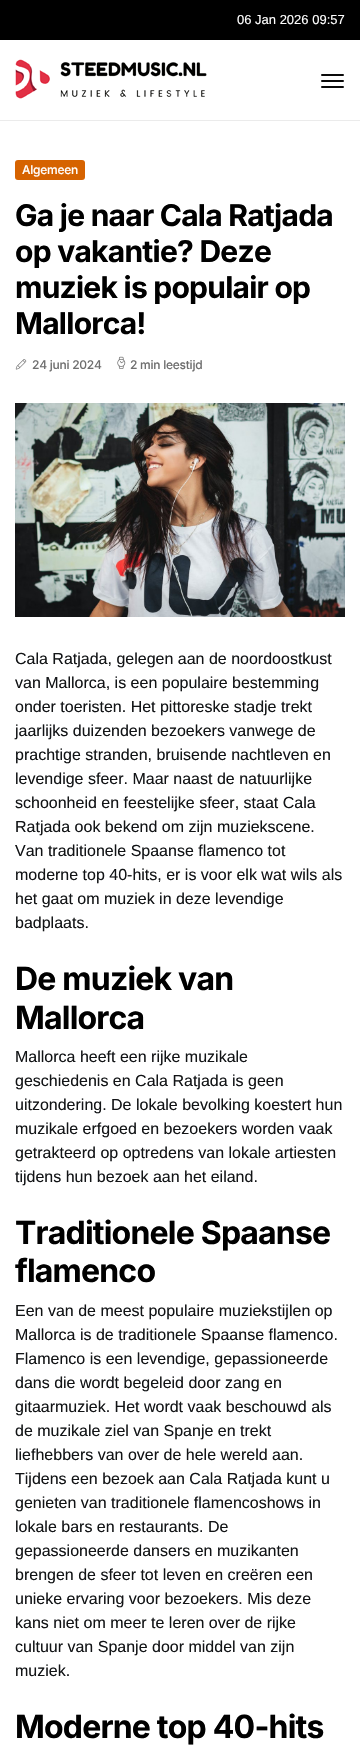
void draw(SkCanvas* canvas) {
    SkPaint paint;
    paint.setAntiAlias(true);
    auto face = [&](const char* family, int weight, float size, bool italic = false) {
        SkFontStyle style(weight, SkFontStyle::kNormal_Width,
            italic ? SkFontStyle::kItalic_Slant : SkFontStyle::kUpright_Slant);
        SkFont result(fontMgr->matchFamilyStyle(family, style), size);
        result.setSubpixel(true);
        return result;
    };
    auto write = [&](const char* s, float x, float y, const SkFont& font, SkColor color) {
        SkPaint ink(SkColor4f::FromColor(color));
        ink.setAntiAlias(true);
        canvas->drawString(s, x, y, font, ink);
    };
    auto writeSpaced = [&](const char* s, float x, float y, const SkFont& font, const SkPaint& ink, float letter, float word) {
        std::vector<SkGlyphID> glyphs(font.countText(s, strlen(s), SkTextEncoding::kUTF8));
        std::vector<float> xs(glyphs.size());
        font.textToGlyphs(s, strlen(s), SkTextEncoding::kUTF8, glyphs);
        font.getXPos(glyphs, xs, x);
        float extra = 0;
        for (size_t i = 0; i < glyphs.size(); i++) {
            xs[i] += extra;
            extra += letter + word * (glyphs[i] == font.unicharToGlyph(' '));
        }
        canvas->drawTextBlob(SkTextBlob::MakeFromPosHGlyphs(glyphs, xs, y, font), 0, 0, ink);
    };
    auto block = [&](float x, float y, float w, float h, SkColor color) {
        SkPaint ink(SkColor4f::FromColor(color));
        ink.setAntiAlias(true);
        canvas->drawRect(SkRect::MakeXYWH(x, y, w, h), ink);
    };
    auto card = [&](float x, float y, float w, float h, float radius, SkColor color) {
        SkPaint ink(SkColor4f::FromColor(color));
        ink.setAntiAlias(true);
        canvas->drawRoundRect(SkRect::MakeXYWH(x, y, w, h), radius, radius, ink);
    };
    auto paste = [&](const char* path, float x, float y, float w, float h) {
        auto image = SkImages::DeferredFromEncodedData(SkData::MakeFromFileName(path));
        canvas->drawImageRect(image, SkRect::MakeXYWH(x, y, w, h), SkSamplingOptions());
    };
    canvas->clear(SK_ColorWHITE);
    block(0, 0, 360, 40, SK_ColorBLACK);
    auto kFont1 = face("Arimo", 400, 13);
    write("06 Jan 2026 09:57", 237, 24, kFont1, SK_ColorWHITE);
    block(0, 120, 360, 1, SkColorSetRGB(235, 235, 235));
    paste("pic1.png", 15, 59, 192, 40);
    card(321, 74, 23, 2, 1, SkColorSetRGB(10, 10, 10));
    card(321, 80, 23, 2, 1, SkColorSetRGB(10, 10, 10));
    card(321, 86, 23, 2, 1, SkColorSetRGB(10, 10, 10));
    card(15, 160, 70, 20, 3, SkColorSetRGB(214, 99, 0));
    auto kFont2 = face("Inter", 500, 12);
    paint.setColor(SK_ColorWHITE);
    writeSpaced("Algemeen", 22, 174, kFont2, paint, -0.25f, 0);
    auto kFont3 = face("Inter", 700, 30);
    paint.setColor(SK_ColorBLACK);
    writeSpaced("Ga je naar Cala Ratjada", 15, 226, kFont3, paint, -0.75f, 0);
    writeSpaced("op vakantie? Deze", 15, 262, kFont3, paint, -0.75f, 0);
    writeSpaced("muziek is populair op", 15, 298, kFont3, paint, -0.75f, 0);
    writeSpaced("Mallorca!", 15, 334, kFont3, paint, -0.75f, 0);
    paste("pic2.png", 15, 359, 12, 11);
    paint.setColor(SkColorSetRGB(111, 111, 111));
    writeSpaced("24 juni 2024", 32, 369, kFont2, paint, -0.25f, 0);
    paste("pic3.png", 117, 356, 9, 13);
    writeSpaced("2 min leestijd", 130, 369, kFont2, paint, -0.25f, 0);
    paste("pic4.png", 15, 403, 330, 214);
    auto kFont4 = face("Arimo", 400, 16);
    write("Cala Ratjada, gelegen aan de noordoostkust", 15, 664, kFont4, SkColorSetRGB(18, 20, 22));
    write("van Mallorca, is een populaire bestemming", 15, 688, kFont4, SkColorSetRGB(18, 20, 22));
    write("onder toeristen. Het pittoreske stadje trekt", 15, 712, kFont4, SkColorSetRGB(18, 20, 22));
    write("jaarlijks duizenden bezoekers vanwege de", 15, 736, kFont4, SkColorSetRGB(18, 20, 22));
    write("prachtige stranden, bruisende nachtleven en", 15, 760, kFont4, SkColorSetRGB(18, 20, 22));
    write("levendige sfeer. Maar naast de natuurlijke", 15, 784, kFont4, SkColorSetRGB(18, 20, 22));
    write("schoonheid en feestelijke sfeer, staat Cala", 15, 808, kFont4, SkColorSetRGB(18, 20, 22));
    write("Ratjada ook bekend om zijn muziekscene.", 15, 832, kFont4, SkColorSetRGB(18, 20, 22));
    write("Van traditionele Spaanse flamenco tot", 15, 856, kFont4, SkColorSetRGB(18, 20, 22));
    write("moderne top 40-hits, er is voor elk wat wils als", 15, 880, kFont4, SkColorSetRGB(18, 20, 22));
    write("het gaat om muziek in deze levendige", 15, 904, kFont4, SkColorSetRGB(18, 20, 22));
    write("badplaats.", 15, 928, kFont4, SkColorSetRGB(18, 20, 22));
    auto kFont5 = face("Inter", 700, 32);
    paint.setColor(SK_ColorBLACK);
    writeSpaced("De muziek van", 15, 990, kFont5, paint, -0.8f, 0);
    writeSpaced("Mallorca", 15, 1029, kFont5, paint, -0.8f, 0);
    write("Mallorca heeft een rijke muzikale", 15, 1062, kFont4, SkColorSetRGB(18, 20, 22));
    write("geschiedenis en Cala Ratjada is geen", 15, 1086, kFont4, SkColorSetRGB(18, 20, 22));
    write("uitzondering. De lokale bevolking koestert hun", 15, 1110, kFont4, SkColorSetRGB(18, 20, 22));
    write("muzikale erfgoed en bezoekers worden vaak", 15, 1134, kFont4, SkColorSetRGB(18, 20, 22));
    write("getrakteerd op optredens van lokale artiesten", 15, 1158, kFont4, SkColorSetRGB(18, 20, 22));
    write("tijdens hun bezoek aan het eiland.", 15, 1182, kFont4, SkColorSetRGB(18, 20, 22));
    writeSpaced("Traditionele Spaanse", 15, 1244, kFont5, paint, -0.8f, 0);
    writeSpaced("flamenco", 15, 1282, kFont5, paint, -0.8f, 0);
    write("Een van de meest populaire muziekstijlen op", 15, 1316, kFont4, SkColorSetRGB(18, 20, 22));
    write("Mallorca is de traditionele Spaanse flamenco.", 15, 1340, kFont4, SkColorSetRGB(18, 20, 22));
    write("Flamenco is een levendige, gepassioneerde", 15, 1364, kFont4, SkColorSetRGB(18, 20, 22));
    write("dans die wordt begeleid door zang en", 15, 1388, kFont4, SkColorSetRGB(18, 20, 22));
    write("gitaarmuziek. Het wordt vaak beschouwd als", 15, 1412, kFont4, SkColorSetRGB(18, 20, 22));
    write("de muzikale ziel van Spanje en trekt", 15, 1436, kFont4, SkColorSetRGB(18, 20, 22));
    write("liefhebbers van over de hele wereld aan.", 15, 1460, kFont4, SkColorSetRGB(18, 20, 22));
    write("Tijdens een bezoek aan Cala Ratjada kunt u", 15, 1484, kFont4, SkColorSetRGB(18, 20, 22));
    write("genieten van traditionele flamencoshows in", 15, 1508, kFont4, SkColorSetRGB(18, 20, 22));
    write("lokale bars en restaurants. De", 15, 1532, kFont4, SkColorSetRGB(18, 20, 22));
    write("gepassioneerde dansers en muzikanten", 15, 1556, kFont4, SkColorSetRGB(18, 20, 22));
    write("brengen de sfeer tot leven en creëren een", 15, 1580, kFont4, SkColorSetRGB(18, 20, 22));
    write("unieke ervaring voor bezoekers. Mis deze", 15, 1604, kFont4, SkColorSetRGB(18, 20, 22));
    write("kans niet om meer te leren over de rijke", 15, 1628, kFont4, SkColorSetRGB(18, 20, 22));
    write("cultuur van Spanje door middel van zijn", 15, 1652, kFont4, SkColorSetRGB(18, 20, 22));
    write("muziek.", 15, 1676, kFont4, SkColorSetRGB(18, 20, 22));
    writeSpaced("Moderne top 40-hits", 15, 1738, kFont5, paint, -0.8f, 0);
}
